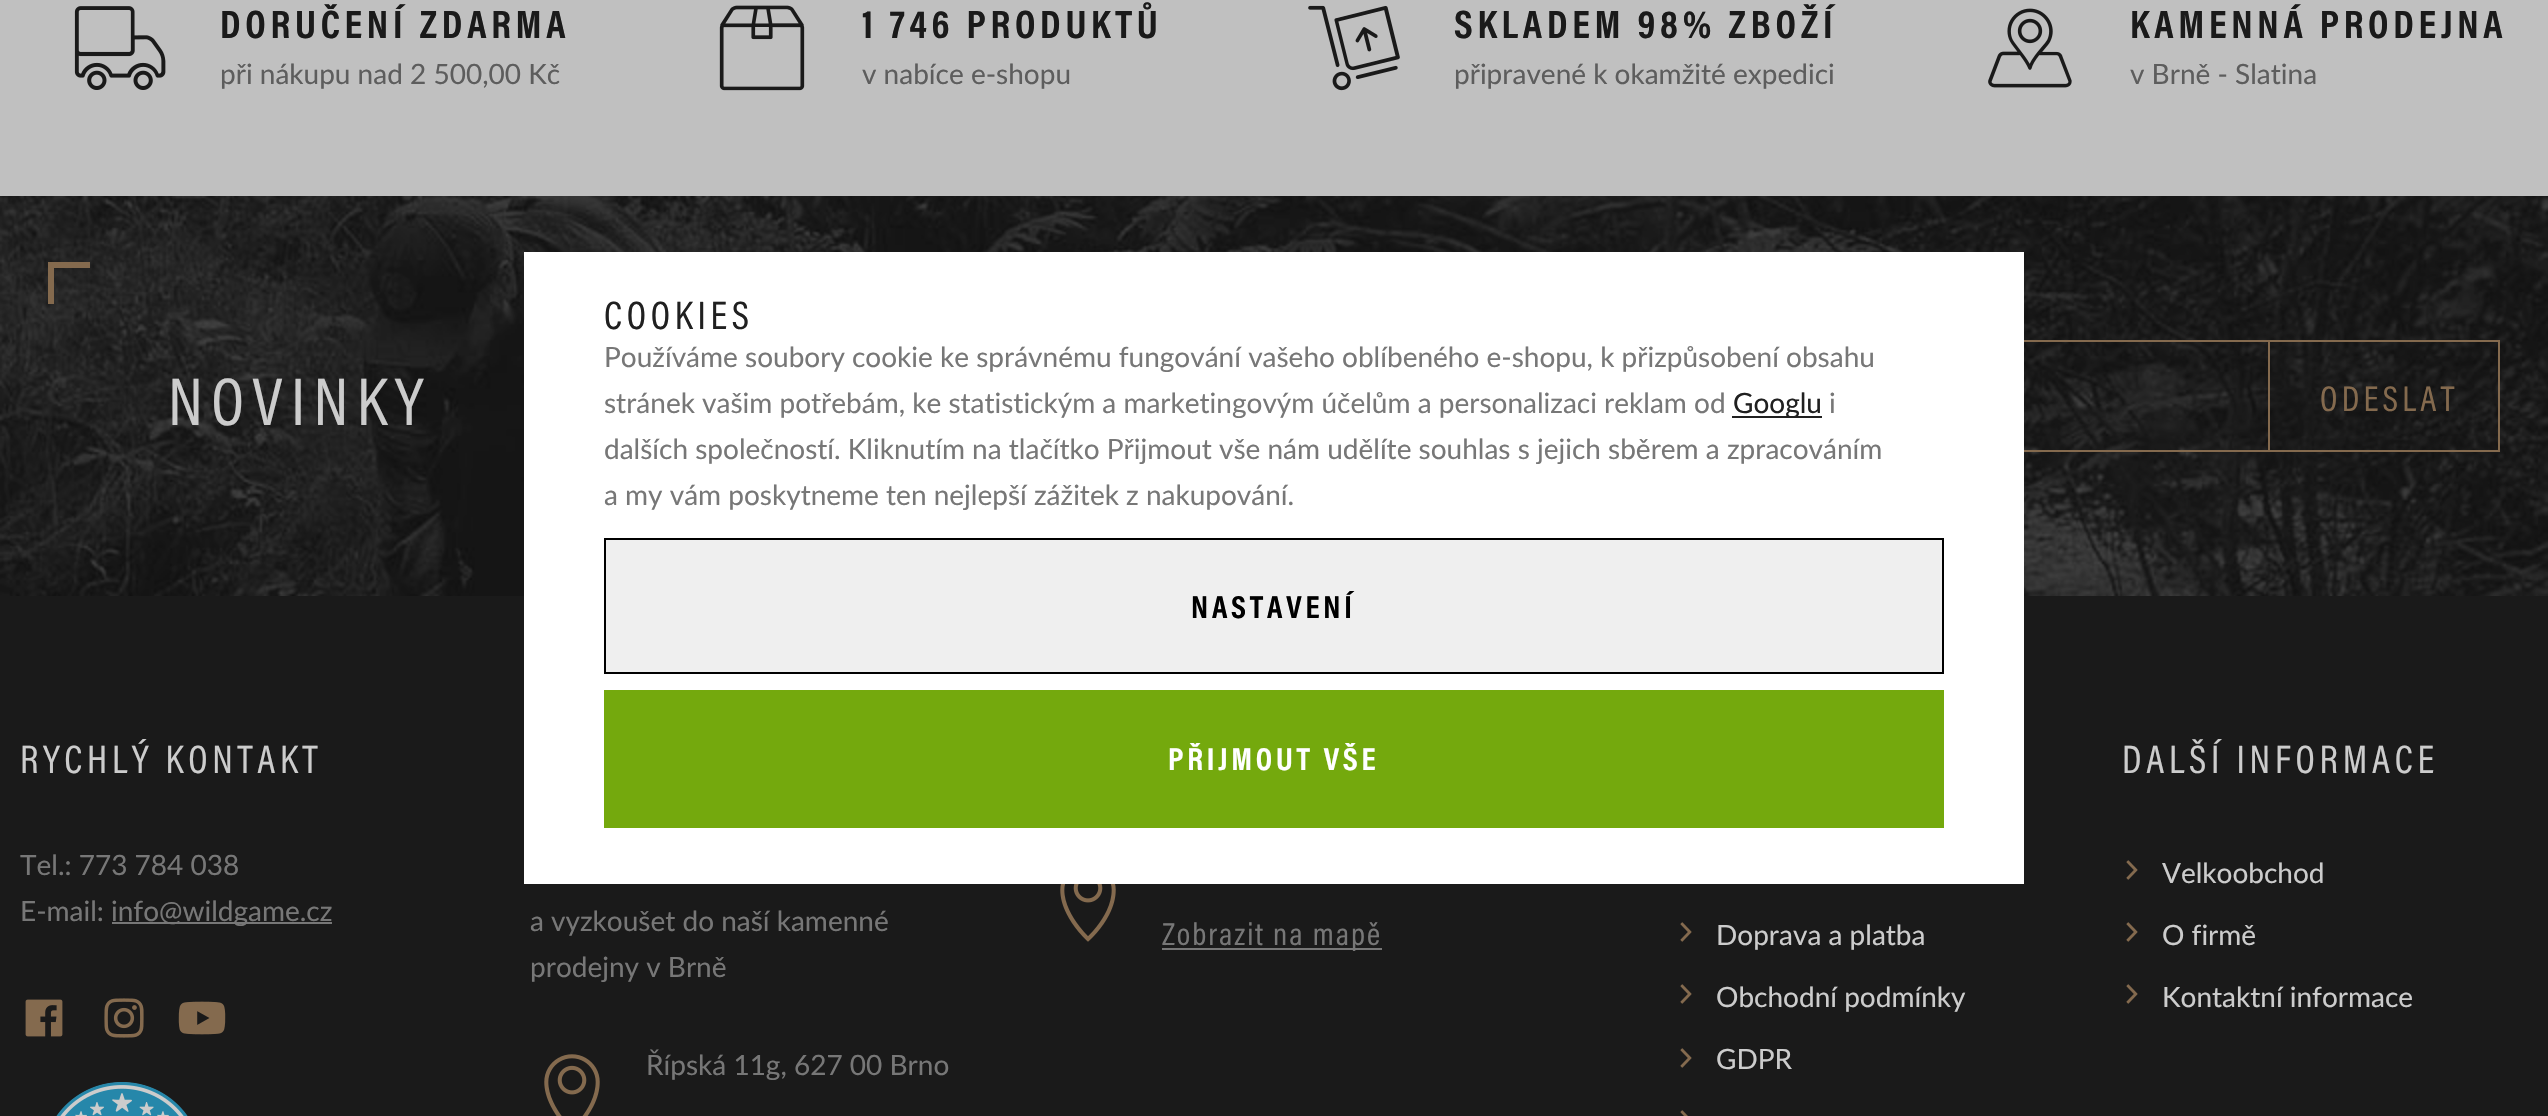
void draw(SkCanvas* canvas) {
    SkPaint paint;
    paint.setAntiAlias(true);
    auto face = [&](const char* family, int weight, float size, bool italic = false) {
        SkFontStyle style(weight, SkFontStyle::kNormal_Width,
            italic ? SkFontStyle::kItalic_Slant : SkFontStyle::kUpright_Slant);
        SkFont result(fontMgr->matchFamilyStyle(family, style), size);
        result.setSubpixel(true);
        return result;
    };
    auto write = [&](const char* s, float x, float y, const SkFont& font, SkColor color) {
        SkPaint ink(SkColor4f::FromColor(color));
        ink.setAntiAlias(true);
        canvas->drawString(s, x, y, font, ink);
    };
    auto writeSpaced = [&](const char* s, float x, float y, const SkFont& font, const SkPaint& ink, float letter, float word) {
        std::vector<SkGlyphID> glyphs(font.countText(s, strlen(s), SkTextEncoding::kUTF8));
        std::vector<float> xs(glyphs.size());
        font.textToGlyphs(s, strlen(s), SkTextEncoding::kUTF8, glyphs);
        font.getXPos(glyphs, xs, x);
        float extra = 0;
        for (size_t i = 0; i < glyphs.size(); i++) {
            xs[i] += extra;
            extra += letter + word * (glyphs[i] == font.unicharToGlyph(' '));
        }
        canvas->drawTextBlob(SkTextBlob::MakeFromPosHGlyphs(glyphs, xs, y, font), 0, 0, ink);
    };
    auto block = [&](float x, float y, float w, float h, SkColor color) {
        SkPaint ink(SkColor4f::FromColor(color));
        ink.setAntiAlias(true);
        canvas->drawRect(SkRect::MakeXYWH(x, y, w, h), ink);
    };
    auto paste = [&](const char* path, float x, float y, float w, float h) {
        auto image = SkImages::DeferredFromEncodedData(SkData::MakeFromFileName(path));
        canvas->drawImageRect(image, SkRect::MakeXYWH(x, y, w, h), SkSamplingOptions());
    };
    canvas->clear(SkColorSetRGB(192, 192, 192));
    paste("pic1.png", 74, 6, 92, 84);
    auto kFont1 = face("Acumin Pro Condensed", 700, 40);
    paint.setColor(SkColorSetRGB(26, 26, 26));
    writeSpaced("DORUČENÍ ZDARMA", 220, 38, kFont1, paint, 4.75f, 0);
    auto kFont2 = face("Lato", 400, 28);
    write("při nákupu nad 2 500,00 Kč", 220, 84, kFont2, SkColorSetRGB(93, 93, 93));
    paste("pic2.png", 719, 5, 86, 86);
    writeSpaced("1 746 PRODUKTŮ", 862, 38, kFont1, paint, 4.75f, 0);
    write("v nabíce e-shopu", 862, 84, kFont2, SkColorSetRGB(93, 93, 93));
    paste("pic3.png", 1308, 5, 92, 86);
    writeSpaced("SKLADEM 98% ZBOŽÍ", 1454, 38, kFont1, paint, 4.75f, 0);
    write("připravené k okamžité expedici", 1454, 84, kFont2, SkColorSetRGB(93, 93, 93));
    paste("pic4.png", 1988, 8, 84, 80);
    writeSpaced("KAMENNÁ PRODEJNA", 2130, 38, kFont1, paint, 4.75f, 0);
    write("v Brně - Slatina", 2130, 84, kFont2, SkColorSetRGB(93, 93, 93));
    paste("pic5.png", 0, 196, 2548, 400);
    block(0, 596, 2548, 520, SkColorSetRGB(26, 26, 26));
    block(524, 252, 1500, 632, SK_ColorWHITE);
    auto kFont3 = face("Acumin Pro Condensed", 400, 40);
    paint.setColor(SkColorSetRGB(32, 32, 32));
    writeSpaced("COOKIES", 604, 329, kFont3, paint, 4.75f, 0);
    write("Používáme soubory cookie ke správnému fungování vašeho oblíbeného e-shopu, k přizpůsobení obsahu", 604, 367, kFont2, SkColorSetRGB(119, 119, 119));
    write("stránek vašim potřebám, ke statistickým a marketingovým účelům a personalizaci reklam od", 604, 413, kFont2, SkColorSetRGB(119, 119, 119));
    block(1732, 416, 90, 2, SkColorSetRGB(32, 32, 32));
    write("Googlu", 1733, 413, kFont2, SkColorSetRGB(32, 32, 32));
    write("i", 1829, 413, kFont2, SkColorSetRGB(119, 119, 119));
    write("dalších společností. Kliknutím na tlačítko Přijmout vše nám udělíte souhlas s jejich sběrem a zpracováním", 604, 459, kFont2, SkColorSetRGB(119, 119, 119));
    write("a my vám poskytneme ten nejlepší zážitek z nakupování.", 604, 505, kFont2, SkColorSetRGB(119, 119, 119));
    paint.setColor(SkColorSetRGB(239, 239, 239));
    canvas->drawRect(SkRect::MakeXYWH(605, 539, 1338, 134), paint);
    paint.setStyle(SkPaint::kStroke_Style);
    paint.setStrokeWidth(2);
    paint.setColor(SK_ColorBLACK);
    canvas->drawRect(SkRect::MakeXYWH(605, 539, 1338, 134), paint);
    auto kFont4 = face("Acumin Pro Condensed", 700, 32);
    paint.setStyle(SkPaint::kFill_Style);
    writeSpaced("NASTAVENÍ", 1191, 618, kFont4, paint, 3.8f, 0);
    block(604, 690, 1340, 138, SkColorSetRGB(116, 169, 13));
    paint.setColor(SK_ColorWHITE);
    writeSpaced("PŘIJMOUT VŠE", 1168, 770, kFont4, paint, 3.8f, 0);
    block(48, 262, 42, 6, SkColorSetRGB(132, 106, 78));
    block(48, 262, 6, 42, SkColorSetRGB(132, 106, 78));
    auto kFont5 = face("Acumin Pro Condensed", 400, 68);
    paint.setColor(SkColorSetRGB(204, 204, 204));
    writeSpaced("NOVINKY", 168, 425, kFont5, paint, 8.25f, 0);
    block(2024, 340, 244, 2, SkColorSetRGB(132, 106, 78));
    block(2024, 450, 244, 2, SkColorSetRGB(132, 106, 78));
    paint.setStyle(SkPaint::kStroke_Style);
    paint.setColor(SkColorSetRGB(132, 106, 78));
    canvas->drawRect(SkRect::MakeXYWH(2269, 341, 230, 110), paint);
    auto kFont6 = face("Acumin Pro Condensed", 400, 36);
    paint.setStyle(SkPaint::kFill_Style);
    writeSpaced("ODESLAT", 2320, 411, kFont6, paint, 4.25f, 0);
    paint.setColor(SkColorSetRGB(204, 204, 204));
    writeSpaced("RYCHLÝ KONTAKT", 20, 773, kFont3, paint, 4.75f, 0);
    write("Tel.: 773 784 038", 20, 875, kFont2, SkColorSetRGB(119, 119, 119));
    write("E-mail:", 20, 921, kFont2, SkColorSetRGB(119, 119, 119));
    block(112, 922, 220, 2, SkColorSetRGB(119, 119, 119));
    write("info@wildgame.cz", 111, 921, kFont2, SkColorSetRGB(119, 119, 119));
    paste("pic6.png", 25, 999, 38, 38);
    paste("pic7.png", 104, 998, 40, 40);
    paste("pic8.png", 178, 1001, 48, 34);
    paste("pic9.png", 56, 1082, 132, 34);
    write("a vyzkoušet do naší kamenné", 530, 931, kFont2, SkColorSetRGB(119, 119, 119));
    write("prodejny v Brně", 530, 977, kFont2, SkColorSetRGB(119, 119, 119));
    paste("pic10.png", 544, 1054, 56, 62);
    write("Řípská 11g, 627 00 Brno", 646, 1075, kFont2, SkColorSetRGB(119, 119, 119));
    paste("pic11.png", 1060, 884, 56, 58);
    block(1162, 948, 220, 2, SkColorSetRGB(119, 119, 119));
    auto kFont7 = face("Acumin Pro Condensed", 400, 32);
    paint.setColor(SkColorSetRGB(119, 119, 119));
    writeSpaced("Zobrazit na mapě", 1162, 945, kFont7, paint, 2, 0);
    paste("pic12.png", 1680, 922, 12, 20);
    write("Doprava a platba", 1716, 945, kFont2, SkColorSetRGB(204, 204, 204));
    paste("pic12.png", 1680, 984, 12, 20);
    write("Obchodní podmínky", 1716, 1007, kFont2, SkColorSetRGB(204, 204, 204));
    paste("pic12.png", 1680, 1048, 12, 20);
    write("GDPR", 1716, 1069, kFont2, SkColorSetRGB(204, 204, 204));
    paste("pic13.png", 1680, 1110, 8, 6);
    paint.setColor(SkColorSetRGB(204, 204, 204));
    writeSpaced("DALŠÍ INFORMACE", 2122, 773, kFont3, paint, 4.75f, 0);
    paste("pic12.png", 2126, 860, 12, 20);
    write("Velkoobchod", 2162, 883, kFont2, SkColorSetRGB(204, 204, 204));
    paste("pic12.png", 2126, 922, 12, 20);
    write("O firmě", 2162, 945, kFont2, SkColorSetRGB(204, 204, 204));
    paste("pic12.png", 2126, 984, 12, 20);
    write("Kontaktní informace", 2162, 1007, kFont2, SkColorSetRGB(204, 204, 204));
}
